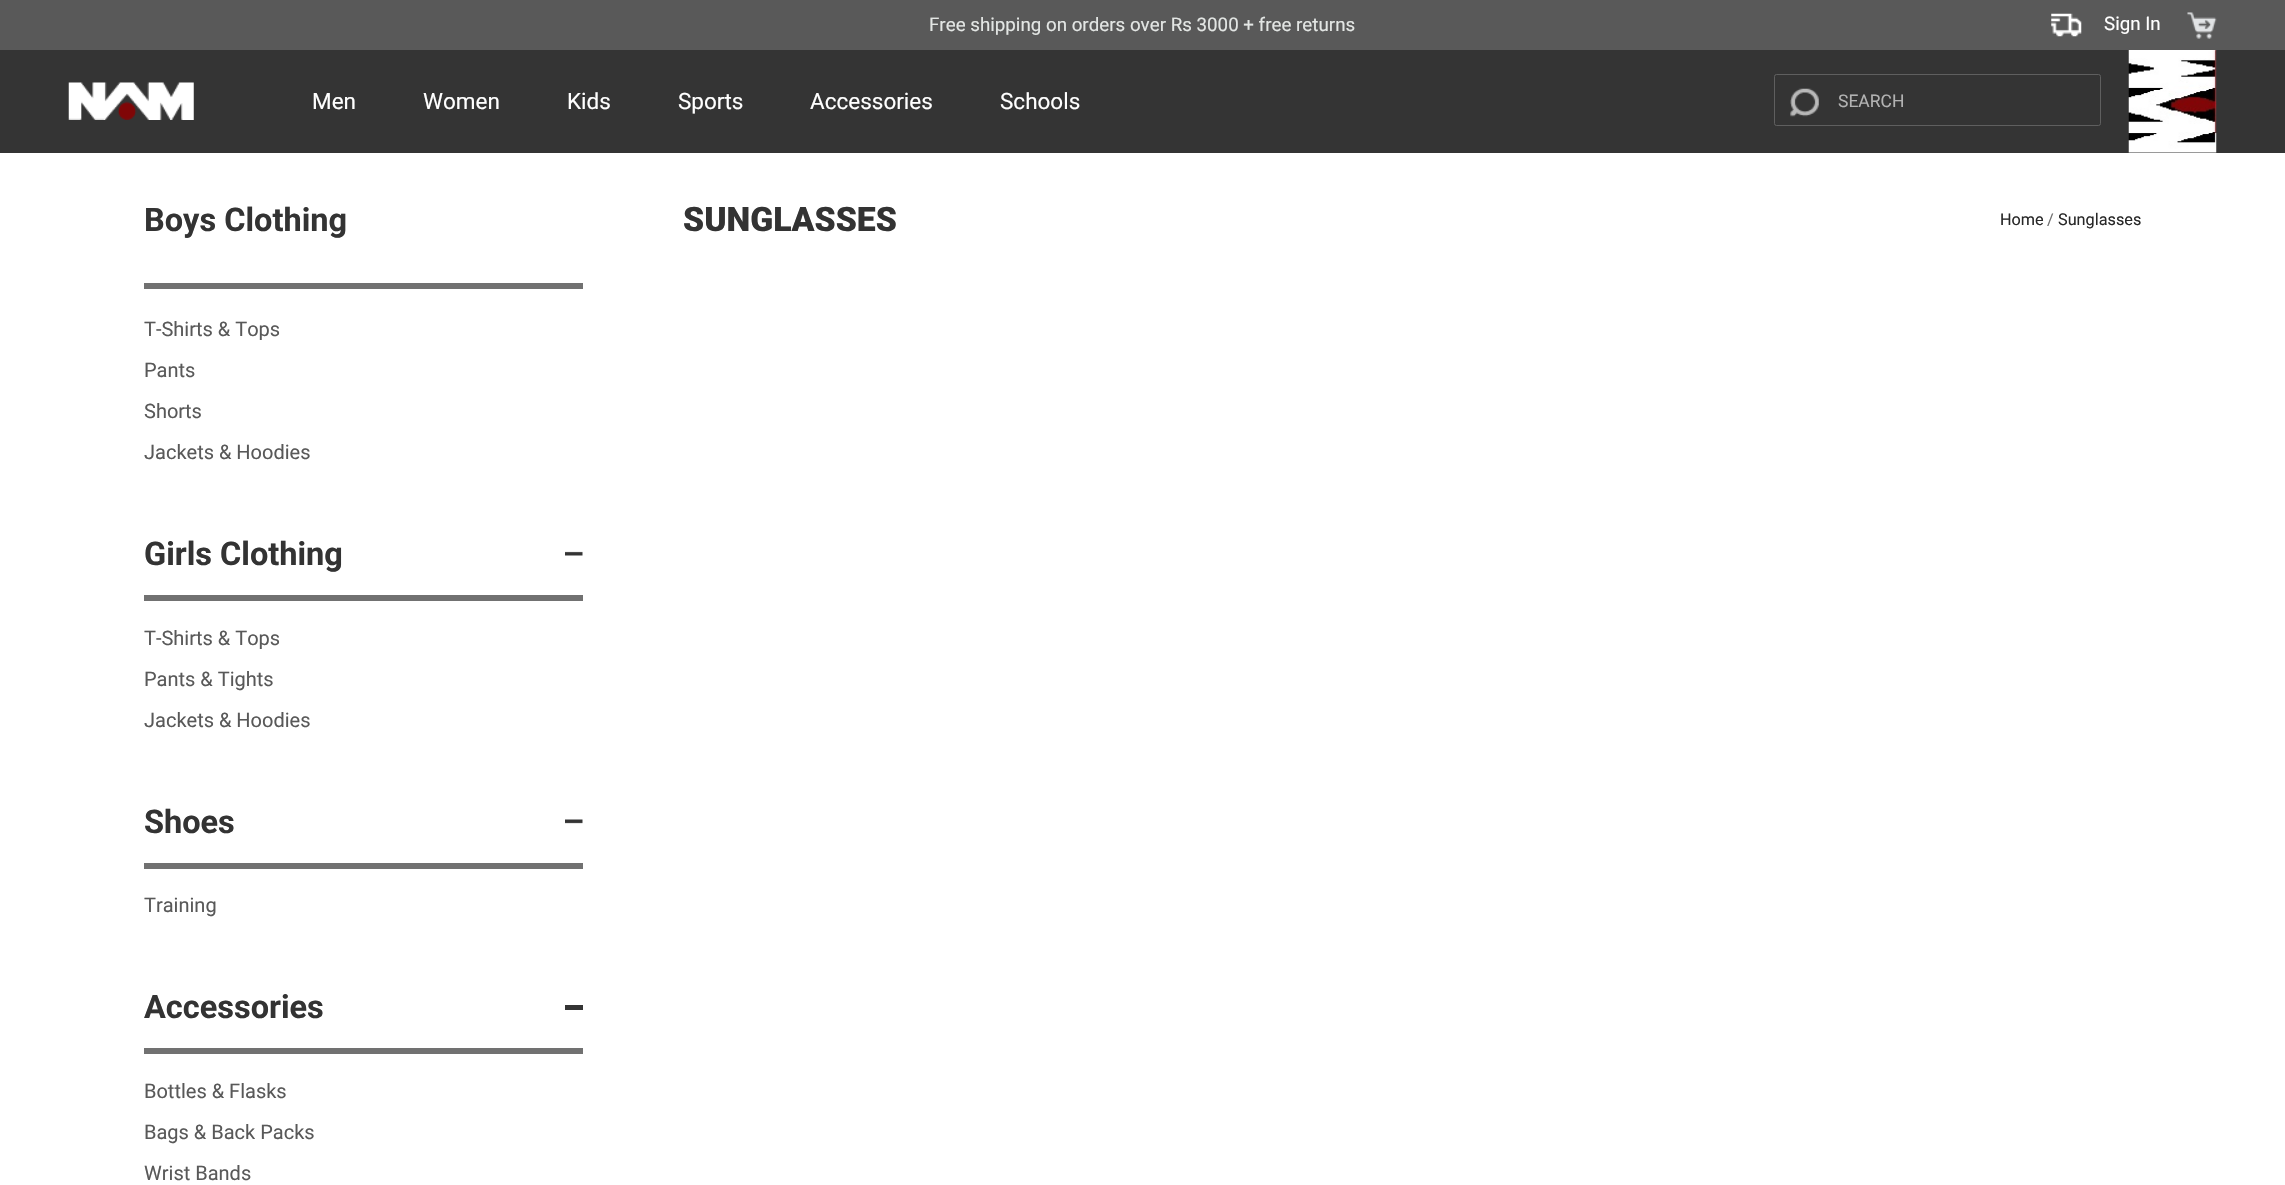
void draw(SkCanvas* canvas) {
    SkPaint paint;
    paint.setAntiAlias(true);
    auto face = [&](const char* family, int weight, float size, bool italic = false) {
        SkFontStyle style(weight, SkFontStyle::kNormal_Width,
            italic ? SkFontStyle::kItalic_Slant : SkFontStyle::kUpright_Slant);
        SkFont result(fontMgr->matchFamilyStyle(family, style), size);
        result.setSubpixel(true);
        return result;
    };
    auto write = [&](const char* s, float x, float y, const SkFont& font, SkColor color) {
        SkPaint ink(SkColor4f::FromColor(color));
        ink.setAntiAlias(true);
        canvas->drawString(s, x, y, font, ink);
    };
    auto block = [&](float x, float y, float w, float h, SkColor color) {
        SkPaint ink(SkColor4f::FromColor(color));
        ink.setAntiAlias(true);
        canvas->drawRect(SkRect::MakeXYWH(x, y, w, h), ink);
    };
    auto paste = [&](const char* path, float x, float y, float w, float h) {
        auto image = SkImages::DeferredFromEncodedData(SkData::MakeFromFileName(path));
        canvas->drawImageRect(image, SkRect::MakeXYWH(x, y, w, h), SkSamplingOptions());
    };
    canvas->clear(SK_ColorWHITE);
    block(0, 0, 2285, 50, SkColorSetRGB(89, 89, 89));
    auto kFont1 = face("Roboto", 400, 18.75f);
    write("Free shipping on orders over Rs 3000 + free returns", 929, 31, kFont1, SkColorSetRGB(227, 230, 228));
    paste("pic1.png", 2051, 13, 31, 24);
    write("Sign In", 2104, 30, kFont1, SK_ColorWHITE);
    paste("pic2.png", 2187, 12, 30, 27);
    block(0, 50, 2285, 103, SkColorSetRGB(52, 52, 52));
    paste("pic3.png", 68, 82, 126, 38);
    auto kFont2 = face("Roboto", 400, 22.5f);
    write("Men", 312, 109, kFont2, SK_ColorWHITE);
    write("Women", 423, 109, kFont2, SK_ColorWHITE);
    write("Kids", 567, 109, kFont2, SK_ColorWHITE);
    write("Sports", 678, 109, kFont2, SK_ColorWHITE);
    write("Accessories", 810, 109, kFont2, SK_ColorWHITE);
    write("Schools", 1000, 109, kFont2, SK_ColorWHITE);
    paint.setStyle(SkPaint::kStroke_Style);
    paint.setStrokeWidth(1);
    paint.setColor(SkColorSetRGB(95, 95, 95));
    canvas->drawRoundRect(SkRect::MakeXYWH(1774.5f, 74.5f, 326, 51), 2, 2, paint);
    paste("pic4.png", 1790, 88, 29, 29);
    auto kFont3 = face("Roboto", 400, 17.5f);
    write("SEARCH", 1838, 107, kFont3, SkColorSetRGB(178, 178, 178));
    paste("pic5.png", 2128, 50, 89, 103);
    block(144, 283, 439, 6, SkColorSetRGB(113, 113, 113));
    auto kFont4 = face("Roboto", 700, 32.5f);
    write("Boys Clothing", 144, 231, kFont4, SkColorSetRGB(51, 51, 51));
    auto kFont5 = face("Roboto", 400, 20);
    write("T-Shirts & Tops", 144, 336, kFont5, SkColorSetRGB(89, 89, 89));
    write("Pants", 144, 377, kFont5, SkColorSetRGB(89, 89, 89));
    write("Shorts", 144, 418, kFont5, SkColorSetRGB(89, 89, 89));
    write("Jackets & Hoodies", 144, 459, kFont5, SkColorSetRGB(89, 89, 89));
    block(144, 595, 439, 6, SkColorSetRGB(113, 113, 113));
    write("Girls Clothing", 144, 565, kFont4, SkColorSetRGB(51, 51, 51));
    paste("pic6.png", 565, 551, 18, 5);
    write("T-Shirts & Tops", 144, 645, kFont5, SkColorSetRGB(89, 89, 89));
    write("Pants & Tights", 144, 686, kFont5, SkColorSetRGB(89, 89, 89));
    write("Jackets & Hoodies", 144, 727, kFont5, SkColorSetRGB(89, 89, 89));
    block(144, 863, 439, 6, SkColorSetRGB(113, 113, 113));
    write("Shoes", 144, 833, kFont4, SkColorSetRGB(51, 51, 51));
    paste("pic7.png", 565, 819, 18, 5);
    write("Training", 144, 912, kFont5, SkColorSetRGB(89, 89, 89));
    block(144, 1048, 439, 6, SkColorSetRGB(113, 113, 113));
    write("Accessories", 144, 1018, kFont4, SkColorSetRGB(51, 51, 51));
    block(565, 1005, 18, 5, SkColorSetRGB(52, 52, 52));
    write("Bottles & Flasks", 144, 1098, kFont5, SkColorSetRGB(89, 89, 89));
    write("Bags & Back Packs", 144, 1139, kFont5, SkColorSetRGB(89, 89, 89));
    write("Wrist Bands", 144, 1180, kFont5, SkColorSetRGB(89, 89, 89));
    auto kFont6 = face("Roboto", 900, 33.75f);
    write("SUNGLASSES", 683, 231, kFont6, SkColorSetRGB(51, 51, 51));
    auto kFont7 = face("Roboto", 400, 16.25f);
    write("Home", 2000, 225, kFont7, SkColorSetRGB(40, 40, 40));
    write("/", 2047, 225, kFont7, SkColorSetRGB(112, 112, 112));
    write("Sunglasses", 2058, 225, kFont7, SkColorSetRGB(40, 40, 40));
}
